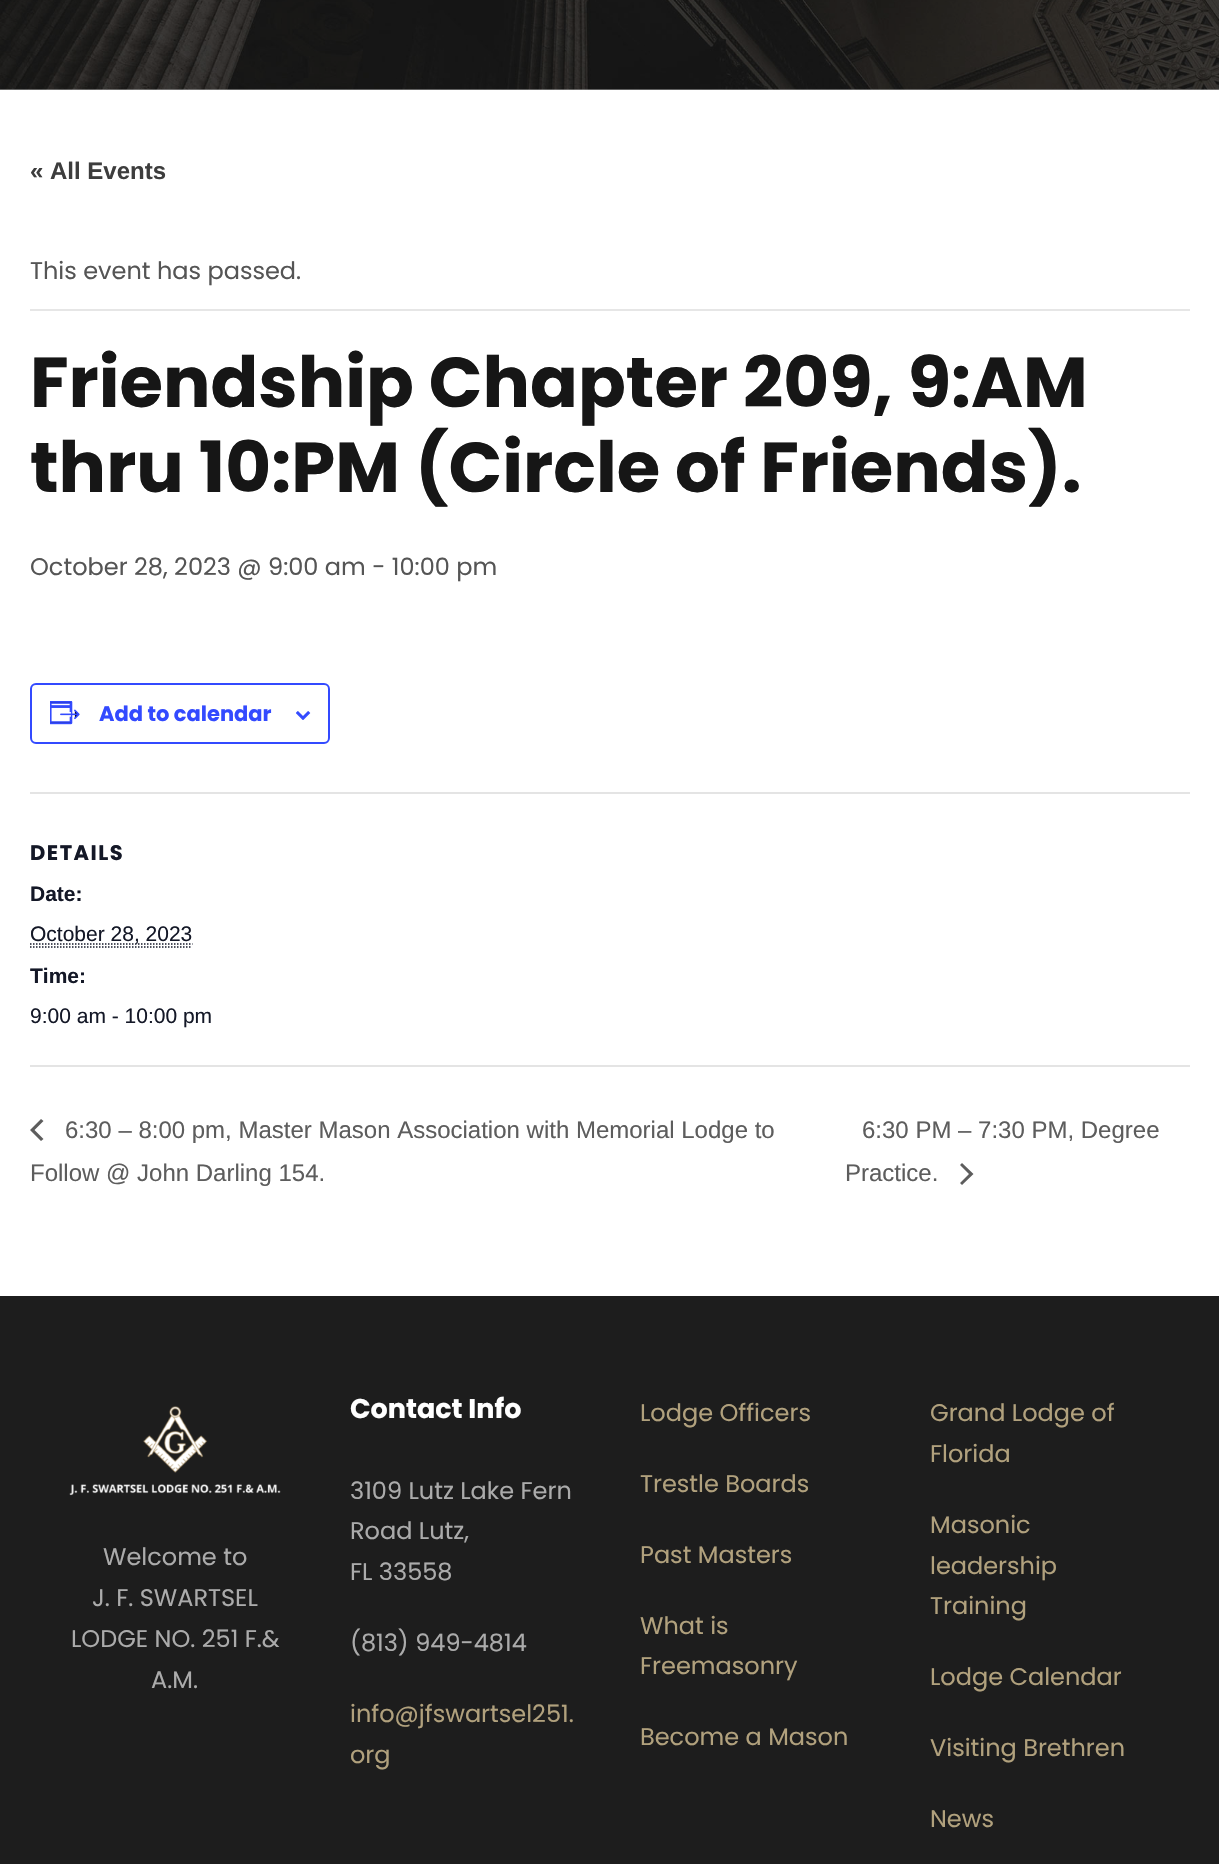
void draw(SkCanvas* canvas) {
    SkPaint paint;
    paint.setAntiAlias(true);
    auto face = [&](const char* family, int weight, float size, bool italic = false) {
        SkFontStyle style(weight, SkFontStyle::kNormal_Width,
            italic ? SkFontStyle::kItalic_Slant : SkFontStyle::kUpright_Slant);
        SkFont result(fontMgr->matchFamilyStyle(family, style), size);
        result.setSubpixel(true);
        return result;
    };
    auto write = [&](const char* s, float x, float y, const SkFont& font, SkColor color) {
        SkPaint ink(SkColor4f::FromColor(color));
        ink.setAntiAlias(true);
        canvas->drawString(s, x, y, font, ink);
    };
    auto writeSpaced = [&](const char* s, float x, float y, const SkFont& font, const SkPaint& ink, float letter, float word) {
        std::vector<SkGlyphID> glyphs(font.countText(s, strlen(s), SkTextEncoding::kUTF8));
        std::vector<float> xs(glyphs.size());
        font.textToGlyphs(s, strlen(s), SkTextEncoding::kUTF8, glyphs);
        font.getXPos(glyphs, xs, x);
        float extra = 0;
        for (size_t i = 0; i < glyphs.size(); i++) {
            xs[i] += extra;
            extra += letter + word * (glyphs[i] == font.unicharToGlyph(' '));
        }
        canvas->drawTextBlob(SkTextBlob::MakeFromPosHGlyphs(glyphs, xs, y, font), 0, 0, ink);
    };
    auto block = [&](float x, float y, float w, float h, SkColor color) {
        SkPaint ink(SkColor4f::FromColor(color));
        ink.setAntiAlias(true);
        canvas->drawRect(SkRect::MakeXYWH(x, y, w, h), ink);
    };
    auto paste = [&](const char* path, float x, float y, float w, float h) {
        auto image = SkImages::DeferredFromEncodedData(SkData::MakeFromFileName(path));
        canvas->drawImageRect(image, SkRect::MakeXYWH(x, y, w, h), SkSamplingOptions());
    };
    canvas->clear(SK_ColorWHITE);
    block(0, 89, 1219, 1, SkColorSetRGB(173, 173, 173));
    paste("pic1.png", 0, 0, 1219, 90);
    auto kFont1 = face("Liberation Sans", 700, 24);
    write("« All Events", 30, 179, kFont1, SkColorSetRGB(61, 61, 61));
    block(30, 309, 1160, 2, SkColorSetRGB(230, 230, 230));
    auto kFont2 = face("Poppins", 400, 24);
    write("This event has passed.", 30, 279, kFont2, SkColorSetRGB(85, 85, 85));
    auto kFont3 = face("Poppins", 700, 70.5f);
    write("Friendship Chapter 209, 9:AM", 30, 407, kFont3, SkColorSetRGB(22, 22, 22));
    write("thru 10:PM (Circle of Friends).", 30, 492, kFont3, SkColorSetRGB(22, 22, 22));
    write("October 28, 2023 @ 9:00 am - 10:00 pm", 30, 575, kFont2, SkColorSetRGB(85, 85, 85));
    paint.setStyle(SkPaint::kStroke_Style);
    paint.setStrokeWidth(2);
    paint.setColor(SkColorSetRGB(51, 74, 255));
    canvas->drawRoundRect(SkRect::MakeXYWH(31, 684, 298, 59), 5, 5, paint);
    paste("pic2.png", 50, 701, 30, 24);
    auto kFont4 = face("Poppins", 700, 21);
    write("Add to calendar", 99, 721, kFont4, SkColorSetRGB(51, 74, 255));
    paste("pic3.png", 296, 711, 15, 9);
    block(30, 792, 1160, 2, SkColorSetRGB(228, 228, 228));
    paint.setStyle(SkPaint::kFill_Style);
    paint.setColor(SkColorSetRGB(20, 24, 39));
    writeSpaced("DETAILS", 30, 860, kFont4, paint, 1.5f, 0);
    auto kFont5 = face("Liberation Sans", 700, 21);
    write("Date:", 30, 901, kFont5, SkColorSetRGB(20, 24, 39));
    paint.setStyle(SkPaint::kStroke_Style);
    paint.setStrokeWidth(1.5f);
    paint.setPathEffect(SkDashPathEffect::Make({{1.5f, 1.5f}}, 0));
    canvas->drawPath(SkPathBuilder().moveTo(30, 944).lineTo(192.5f, 944).detach(), paint);
    paint.setPathEffect(nullptr);
    auto kFont6 = face("Liberation Sans", 400, 21);
    write("October 28, 2023", 30, 941, kFont6, SkColorSetRGB(20, 24, 39));
    paint.setPathEffect(SkDashPathEffect::Make({{1.5f, 1.5f}}, 0));
    canvas->drawPath(SkPathBuilder().moveTo(30, 947).lineTo(192, 947).detach(), paint);
    paint.setPathEffect(nullptr);
    write("Time:", 30, 983, kFont5, SkColorSetRGB(20, 24, 39));
    write("9:00 am - 10:00 pm", 30, 1023, kFont6, SkColorSetRGB(20, 24, 39));
    block(30, 1065, 1160, 2, SkColorSetRGB(228, 228, 228));
    paint.setStyle(SkPaint::kFill_Style);
    paint.setColor(SkColorSetRGB(93, 93, 93));
    canvas->drawPath(SkPathBuilder().moveTo(43.5f, 1139).lineTo(41, 1141).lineTo(30, 1130).lineTo(41, 1119).lineTo(43.5f, 1121).lineTo(34.5f, 1130).close().detach(), paint);
    auto kFont7 = face("Liberation Sans", 400, 24);
    write("6:30 – 8:00 pm, Master Mason Association with Memorial Lodge to", 65, 1138, kFont7, SkColorSetRGB(93, 93, 93));
    write("Follow @ John Darling 154.", 30, 1181, kFont7, SkColorSetRGB(93, 93, 93));
    write("6:30 PM – 7:30 PM, Degree", 862, 1138, kFont7, SkColorSetRGB(93, 93, 93));
    write("Practice.", 845, 1181, kFont7, SkColorSetRGB(93, 93, 93));
    canvas->drawPath(SkPathBuilder().moveTo(960, 1165).lineTo(962, 1163).lineTo(973.5f, 1174).lineTo(962, 1185).lineTo(960, 1183).lineTo(969, 1174).close().detach(), paint);
    block(0, 1296, 1219, 568, SkColorSetRGB(29, 29, 29));
    paste("pic4.png", 69, 1406, 212, 90);
    write("Welcome to", 103, 1565, kFont2, SkColorSetRGB(171, 171, 171));
    write("J. F. SWARTSEL", 92, 1606, kFont2, SkColorSetRGB(171, 171, 171));
    write("LODGE NO. 251 F.&", 71, 1647, kFont2, SkColorSetRGB(171, 171, 171));
    write("A.M.", 151, 1688, kFont2, SkColorSetRGB(171, 171, 171));
    auto kFont8 = face("Poppins", 700, 27);
    write("Contact Info", 350, 1418, kFont8, SK_ColorWHITE);
    write("3109 Lutz Lake Fern", 350, 1499, kFont2, SkColorSetRGB(171, 171, 171));
    write("Road Lutz,", 350, 1539, kFont2, SkColorSetRGB(171, 171, 171));
    write("FL 33558", 350, 1580, kFont2, SkColorSetRGB(171, 171, 171));
    write("(813) 949-4814", 350, 1651, kFont2, SkColorSetRGB(171, 171, 171));
    write("info@jfswartsel251.", 350, 1722, kFont2, SkColorSetRGB(177, 161, 125));
    write("org", 350, 1763, kFont2, SkColorSetRGB(177, 161, 125));
    write("Lodge Officers", 640, 1421, kFont2, SkColorSetRGB(177, 161, 125));
    write("Trestle Boards", 640, 1492, kFont2, SkColorSetRGB(177, 161, 125));
    write("Past Masters", 640, 1563, kFont2, SkColorSetRGB(177, 161, 125));
    write("What is", 640, 1634, kFont2, SkColorSetRGB(177, 161, 125));
    write("Freemasonry", 640, 1674, kFont2, SkColorSetRGB(177, 161, 125));
    write("Become a Mason", 640, 1745, kFont2, SkColorSetRGB(177, 161, 125));
    write("Grand Lodge of", 930, 1421, kFont2, SkColorSetRGB(177, 161, 125));
    write("Florida", 930, 1462, kFont2, SkColorSetRGB(177, 161, 125));
    write("Masonic", 930, 1533, kFont2, SkColorSetRGB(177, 161, 125));
    write("leadership", 930, 1574, kFont2, SkColorSetRGB(177, 161, 125));
    write("Training", 930, 1614, kFont2, SkColorSetRGB(177, 161, 125));
    write("Lodge Calendar", 930, 1685, kFont2, SkColorSetRGB(177, 161, 125));
    write("Visiting Brethren", 930, 1756, kFont2, SkColorSetRGB(177, 161, 125));
    write("News", 930, 1827, kFont2, SkColorSetRGB(177, 161, 125));
}
